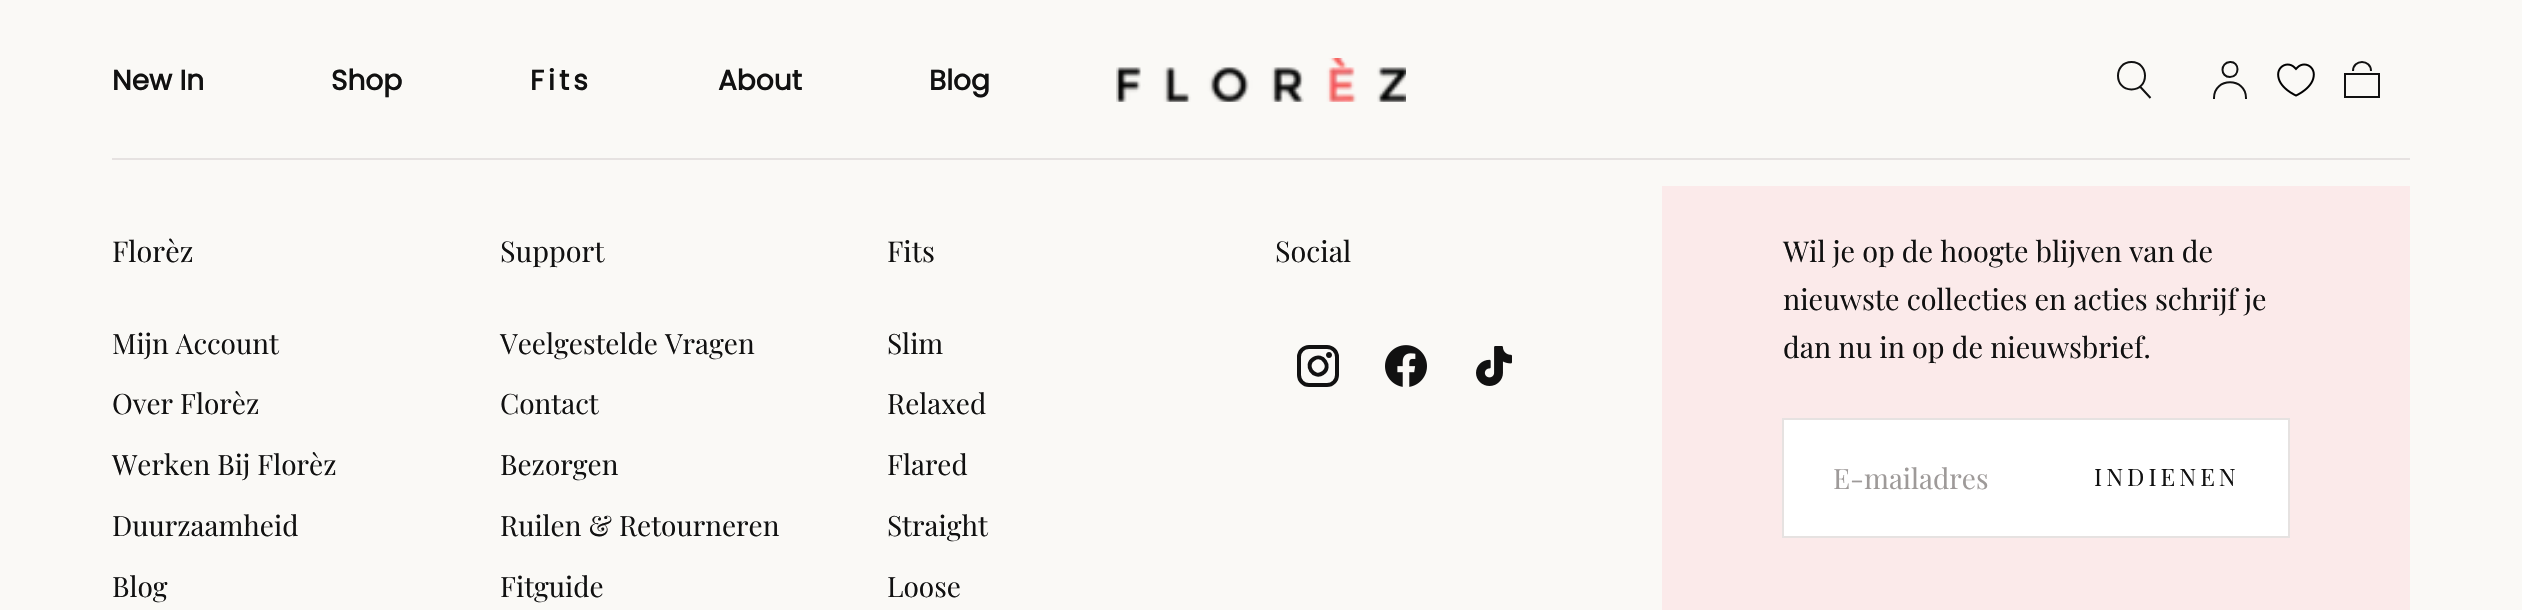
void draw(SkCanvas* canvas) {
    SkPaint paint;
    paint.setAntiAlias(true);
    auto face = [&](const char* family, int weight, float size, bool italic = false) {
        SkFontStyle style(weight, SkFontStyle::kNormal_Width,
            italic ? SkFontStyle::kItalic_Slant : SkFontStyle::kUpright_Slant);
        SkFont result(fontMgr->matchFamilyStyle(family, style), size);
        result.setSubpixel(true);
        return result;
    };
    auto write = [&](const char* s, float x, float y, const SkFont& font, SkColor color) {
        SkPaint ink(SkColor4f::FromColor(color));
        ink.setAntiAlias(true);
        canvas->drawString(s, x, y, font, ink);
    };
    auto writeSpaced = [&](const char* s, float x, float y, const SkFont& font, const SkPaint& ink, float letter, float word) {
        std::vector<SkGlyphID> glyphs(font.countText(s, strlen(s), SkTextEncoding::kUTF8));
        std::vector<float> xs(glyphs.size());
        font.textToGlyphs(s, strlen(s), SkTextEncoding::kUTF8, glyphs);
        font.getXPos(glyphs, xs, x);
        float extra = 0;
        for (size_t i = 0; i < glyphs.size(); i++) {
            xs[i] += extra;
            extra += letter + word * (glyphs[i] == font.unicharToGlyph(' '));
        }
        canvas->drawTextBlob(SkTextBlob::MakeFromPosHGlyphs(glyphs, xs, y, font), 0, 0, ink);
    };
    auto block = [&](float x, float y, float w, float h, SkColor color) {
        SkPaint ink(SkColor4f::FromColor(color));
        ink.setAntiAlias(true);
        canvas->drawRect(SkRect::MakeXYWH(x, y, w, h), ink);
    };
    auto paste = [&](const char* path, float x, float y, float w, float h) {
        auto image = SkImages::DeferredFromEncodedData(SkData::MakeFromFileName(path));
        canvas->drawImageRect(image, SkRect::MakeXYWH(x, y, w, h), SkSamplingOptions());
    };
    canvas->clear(SkColorSetRGB(250, 249, 246));
    auto kFont1 = face("Poppins", 700, 28);
    write("New In", 112, 90, kFont1, SkColorSetRGB(17, 17, 17));
    write("Shop", 331, 90, kFont1, SkColorSetRGB(17, 17, 17));
    paint.setColor(SkColorSetRGB(17, 17, 17));
    writeSpaced("Fits", 530, 90, kFont1, paint, 4, 0);
    write("About", 718, 90, kFont1, SkColorSetRGB(17, 17, 17));
    write("Blog", 929, 90, kFont1, SkColorSetRGB(17, 17, 17));
    paste("pic1.png", 1116, 58, 290, 44);
    paint.setStyle(SkPaint::kStroke_Style);
    paint.setStrokeWidth(2);
    canvas->drawPath(SkPathBuilder().moveTo(2139.5f, 86).lineTo(2150.5f, 98).moveTo(2131.5f, 89.5f).cubicTo(2149.5f, 89.5f, 2149.5f, 62, 2131.5f, 62).cubicTo(2113.5f, 62, 2113.5f, 89.5f, 2131.5f, 89.5f).close().detach(), paint);
    paint.setStrokeCap(SkPaint::kSquare_Cap);
    canvas->drawPath(SkPathBuilder().moveTo(2214, 98).cubicTo(2214, 77, 2246, 77, 2246, 98).moveTo(2230, 77).cubicTo(2240, 77, 2240, 61.5f, 2230, 62).cubicTo(2220, 62.5f, 2220, 77, 2230, 77).close().detach(), paint);
    paste("pic2.png", 2277, 63, 38, 34);
    paint.setStrokeCap(SkPaint::kButt_Cap);
    canvas->drawPath(SkPathBuilder().moveTo(2379, 97).lineTo(2345, 97).lineTo(2345, 74).lineTo(2379, 74).close().moveTo(2371, 71).cubicTo(2371, 59, 2353, 59, 2353, 71).detach(), paint);
    block(112, 158, 2298, 2, SkColorSetRGB(230, 226, 225));
    auto kFont2 = face("Playfair Display", 400, 28.75f);
    write("Florèz", 112, 262, kFont2, SkColorSetRGB(17, 17, 17));
    auto kFont3 = face("Playfair Display", 400, 28);
    write("Mijn Account", 112, 354, kFont3, SkColorSetRGB(17, 17, 17));
    write("Over Florèz", 112, 414, kFont3, SkColorSetRGB(17, 17, 17));
    write("Werken Bij Florèz", 112, 475, kFont3, SkColorSetRGB(17, 17, 17));
    write("Duurzaamheid", 112, 536, kFont3, SkColorSetRGB(17, 17, 17));
    write("Blog", 112, 597, kFont3, SkColorSetRGB(17, 17, 17));
    write("Support", 500, 262, kFont2, SkColorSetRGB(17, 17, 17));
    write("Veelgestelde Vragen", 500, 354, kFont3, SkColorSetRGB(17, 17, 17));
    write("Contact", 500, 414, kFont3, SkColorSetRGB(17, 17, 17));
    write("Bezorgen", 500, 475, kFont3, SkColorSetRGB(17, 17, 17));
    write("Ruilen & Retourneren", 500, 536, kFont3, SkColorSetRGB(17, 17, 17));
    write("Fitguide", 500, 597, kFont3, SkColorSetRGB(17, 17, 17));
    write("Fits", 887, 262, kFont2, SkColorSetRGB(17, 17, 17));
    write("Slim", 887, 354, kFont3, SkColorSetRGB(17, 17, 17));
    write("Relaxed", 887, 414, kFont3, SkColorSetRGB(17, 17, 17));
    write("Flared", 887, 475, kFont3, SkColorSetRGB(17, 17, 17));
    write("Straight", 887, 536, kFont3, SkColorSetRGB(17, 17, 17));
    write("Loose", 887, 597, kFont3, SkColorSetRGB(17, 17, 17));
    write("Social", 1275, 262, kFont2, SkColorSetRGB(17, 17, 17));
    paint.setStrokeWidth(4);
    canvas->drawRoundRect(SkRect::MakeXYWH(1299, 347, 38, 38), 10, 10, paint);
    paint.setStyle(SkPaint::kFill_Style);
    canvas->drawPath(SkPathBuilder().moveTo(1329, 358).cubicTo(1325, 358, 1325, 352, 1329, 352).cubicTo(1333, 352, 1333, 358, 1329, 358).close().detach(), paint);
    paint.setStyle(SkPaint::kStroke_Style);
    canvas->drawPath(SkPathBuilder().moveTo(1313.5f, 359).cubicTo(1322.5f, 353, 1332, 366.5f, 1323, 373).cubicTo(1313.5f, 379.5f, 1304, 365, 1313.5f, 359).close().detach(), paint);
    paste("pic3.png", 1385, 345, 42, 42);
    paste("pic4.png", 1476, 346, 36, 40);
    block(1662, 186, 748, 424, SkColorSetRGB(251, 234, 234));
    write("Wil je op de hoogte blijven van de", 1783, 262, kFont2, SkColorSetRGB(17, 17, 17));
    write("nieuwste collecties en acties schrijf je", 1783, 310, kFont2, SkColorSetRGB(17, 17, 17));
    write("dan nu in op de nieuwsbrief.", 1783, 358, kFont2, SkColorSetRGB(17, 17, 17));
    paint.setStyle(SkPaint::kFill_Style);
    paint.setColor(SK_ColorWHITE);
    canvas->drawRect(SkRect::MakeXYWH(1783, 419, 506, 118), paint);
    paint.setStyle(SkPaint::kStroke_Style);
    paint.setStrokeWidth(2);
    paint.setColor(SkColorSetRGB(230, 226, 225));
    canvas->drawRect(SkRect::MakeXYWH(1783, 419, 506, 118), paint);
    write("E-mailadres", 1833, 489, kFont3, SkColorSetRGB(158, 154, 153));
    auto kFont4 = face("Playfair Display", 400, 24);
    paint.setStyle(SkPaint::kFill_Style);
    paint.setColor(SkColorSetRGB(17, 17, 17));
    writeSpaced("INDIENEN", 2094, 486, kFont4, paint, 4, 0);
}
